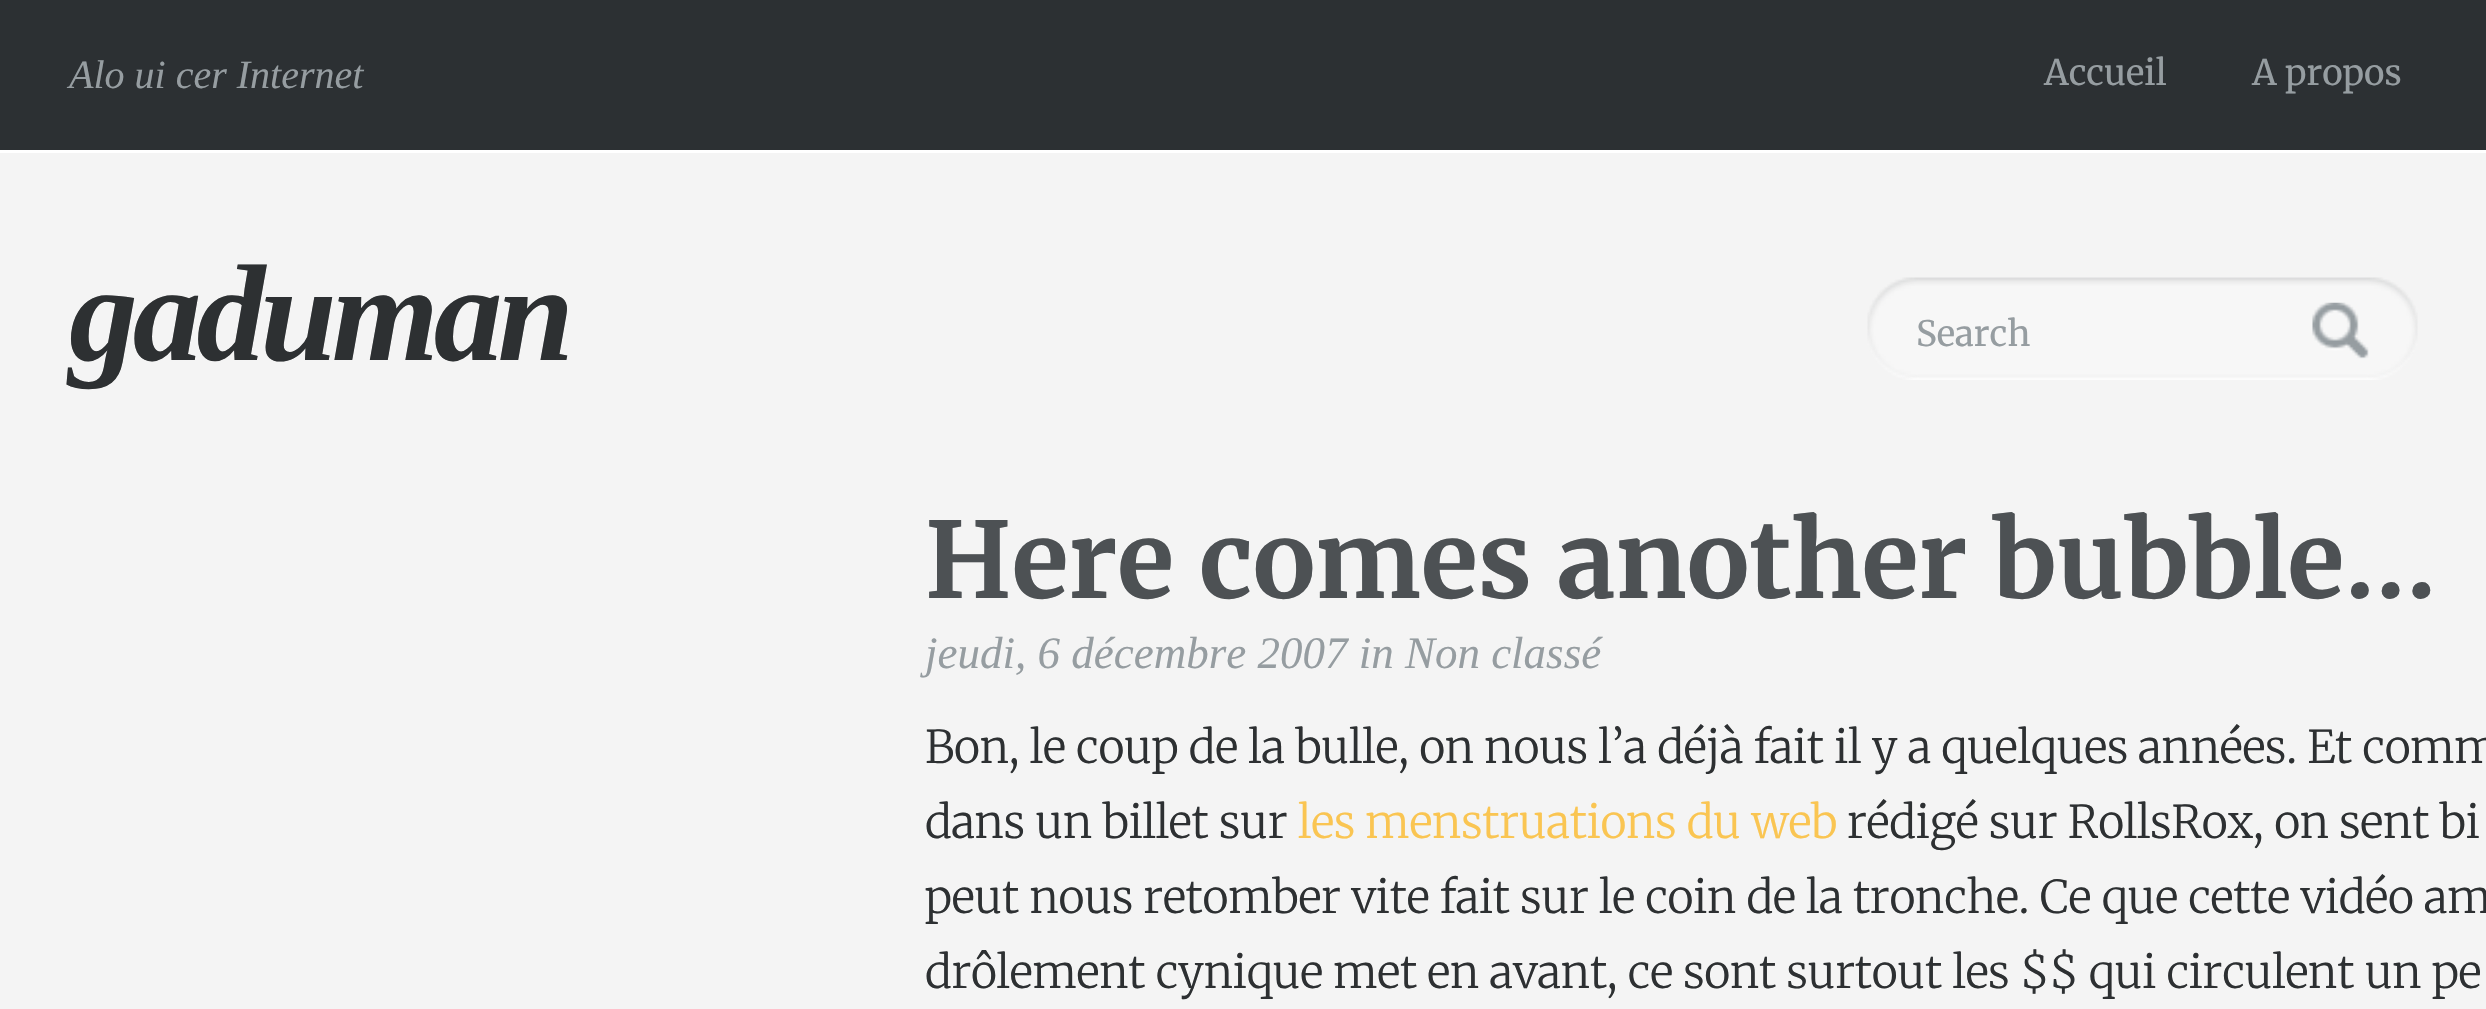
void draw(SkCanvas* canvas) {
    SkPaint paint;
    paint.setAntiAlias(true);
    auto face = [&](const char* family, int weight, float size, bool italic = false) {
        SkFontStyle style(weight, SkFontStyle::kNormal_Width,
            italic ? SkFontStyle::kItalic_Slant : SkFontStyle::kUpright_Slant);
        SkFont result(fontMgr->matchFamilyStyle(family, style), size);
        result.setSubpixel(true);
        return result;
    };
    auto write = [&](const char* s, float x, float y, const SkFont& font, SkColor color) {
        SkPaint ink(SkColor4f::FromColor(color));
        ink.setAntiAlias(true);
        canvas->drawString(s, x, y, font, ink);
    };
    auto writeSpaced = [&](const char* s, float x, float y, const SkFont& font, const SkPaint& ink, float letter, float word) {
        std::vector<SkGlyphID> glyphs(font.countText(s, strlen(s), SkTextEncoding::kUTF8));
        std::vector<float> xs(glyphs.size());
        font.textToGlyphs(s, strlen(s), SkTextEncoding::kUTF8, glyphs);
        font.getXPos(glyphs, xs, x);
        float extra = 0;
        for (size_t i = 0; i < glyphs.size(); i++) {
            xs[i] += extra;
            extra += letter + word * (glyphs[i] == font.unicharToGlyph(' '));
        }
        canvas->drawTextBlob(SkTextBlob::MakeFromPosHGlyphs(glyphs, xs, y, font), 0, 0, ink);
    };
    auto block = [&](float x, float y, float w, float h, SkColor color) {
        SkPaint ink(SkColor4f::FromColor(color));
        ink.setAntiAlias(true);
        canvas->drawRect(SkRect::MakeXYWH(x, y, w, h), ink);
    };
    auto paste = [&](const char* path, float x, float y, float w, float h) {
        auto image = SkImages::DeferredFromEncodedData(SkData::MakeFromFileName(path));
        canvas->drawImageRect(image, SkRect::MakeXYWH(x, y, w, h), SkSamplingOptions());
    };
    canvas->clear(SkColorSetRGB(244, 244, 244));
    block(0, 0, 2486, 150, SkColorSetRGB(44, 48, 51));
    block(0, 150, 2486, 3, SK_ColorWHITE);
    auto kFont1 = face("Liberation Serif", 400, 40, true);
    write("Alo ui cer Internet", 69, 88, kFont1, SkColorSetRGB(150, 157, 161));
    auto kFont2 = face("Merriweather", 400, 35);
    write("Accueil", 2044, 85, kFont2, SkColorSetRGB(150, 157, 161));
    write("A propos", 2252, 85, kFont2, SkColorSetRGB(150, 157, 161));
    auto kFont3 = face("Liberation Serif", 700, 137.5f, true);
    paint.setColor(SkColorSetRGB(45, 48, 50));
    writeSpaced("gaduman", 69, 360, kFont3, paint, -5, 0);
    paste("pic1.png", 1867, 277, 551, 103);
    write("Search", 1916, 346, kFont2, SkColorSetRGB(150, 157, 161));
    paste("pic2.png", 2312, 302, 57, 57);
    auto kFont4 = face("Merriweather", 700, 105);
    write("Here comes another bubble…", 925, 598, kFont4, SkColorSetRGB(77, 81, 84));
    auto kFont5 = face("Liberation Serif", 400, 45, true);
    write("jeudi, 6 décembre 2007 in Non classé", 925, 668, kFont5, SkColorSetRGB(150, 157, 161));
    auto kFont6 = face("Merriweather", 300, 45);
    writeSpaced("Bon, le coup de la bulle, on nous l’a déjà fait il y a quelques années. Et comm", 925, 763, kFont6, paint, -0.25f, 0);
    writeSpaced("dans un billet sur", 925, 838, kFont6, paint, -0.25f, 0);
    paint.setColor(SkColorSetRGB(250, 197, 82));
    writeSpaced("les menstruations du web", 1298, 838, kFont6, paint, -0.25f, 0);
    paint.setColor(SkColorSetRGB(45, 48, 50));
    writeSpaced("rédigé sur RollsRox, on sent bi", 1847, 838, kFont6, paint, -0.25f, 0);
    writeSpaced("peut nous retomber vite fait sur le coin de la tronche. Ce que cette vidéo am", 925, 913, kFont6, paint, -0.25f, 0);
    writeSpaced("drôlement cynique met en avant, ce sont surtout les $$ qui circulent un pe", 925, 988, kFont6, paint, -0.25f, 0);
}
